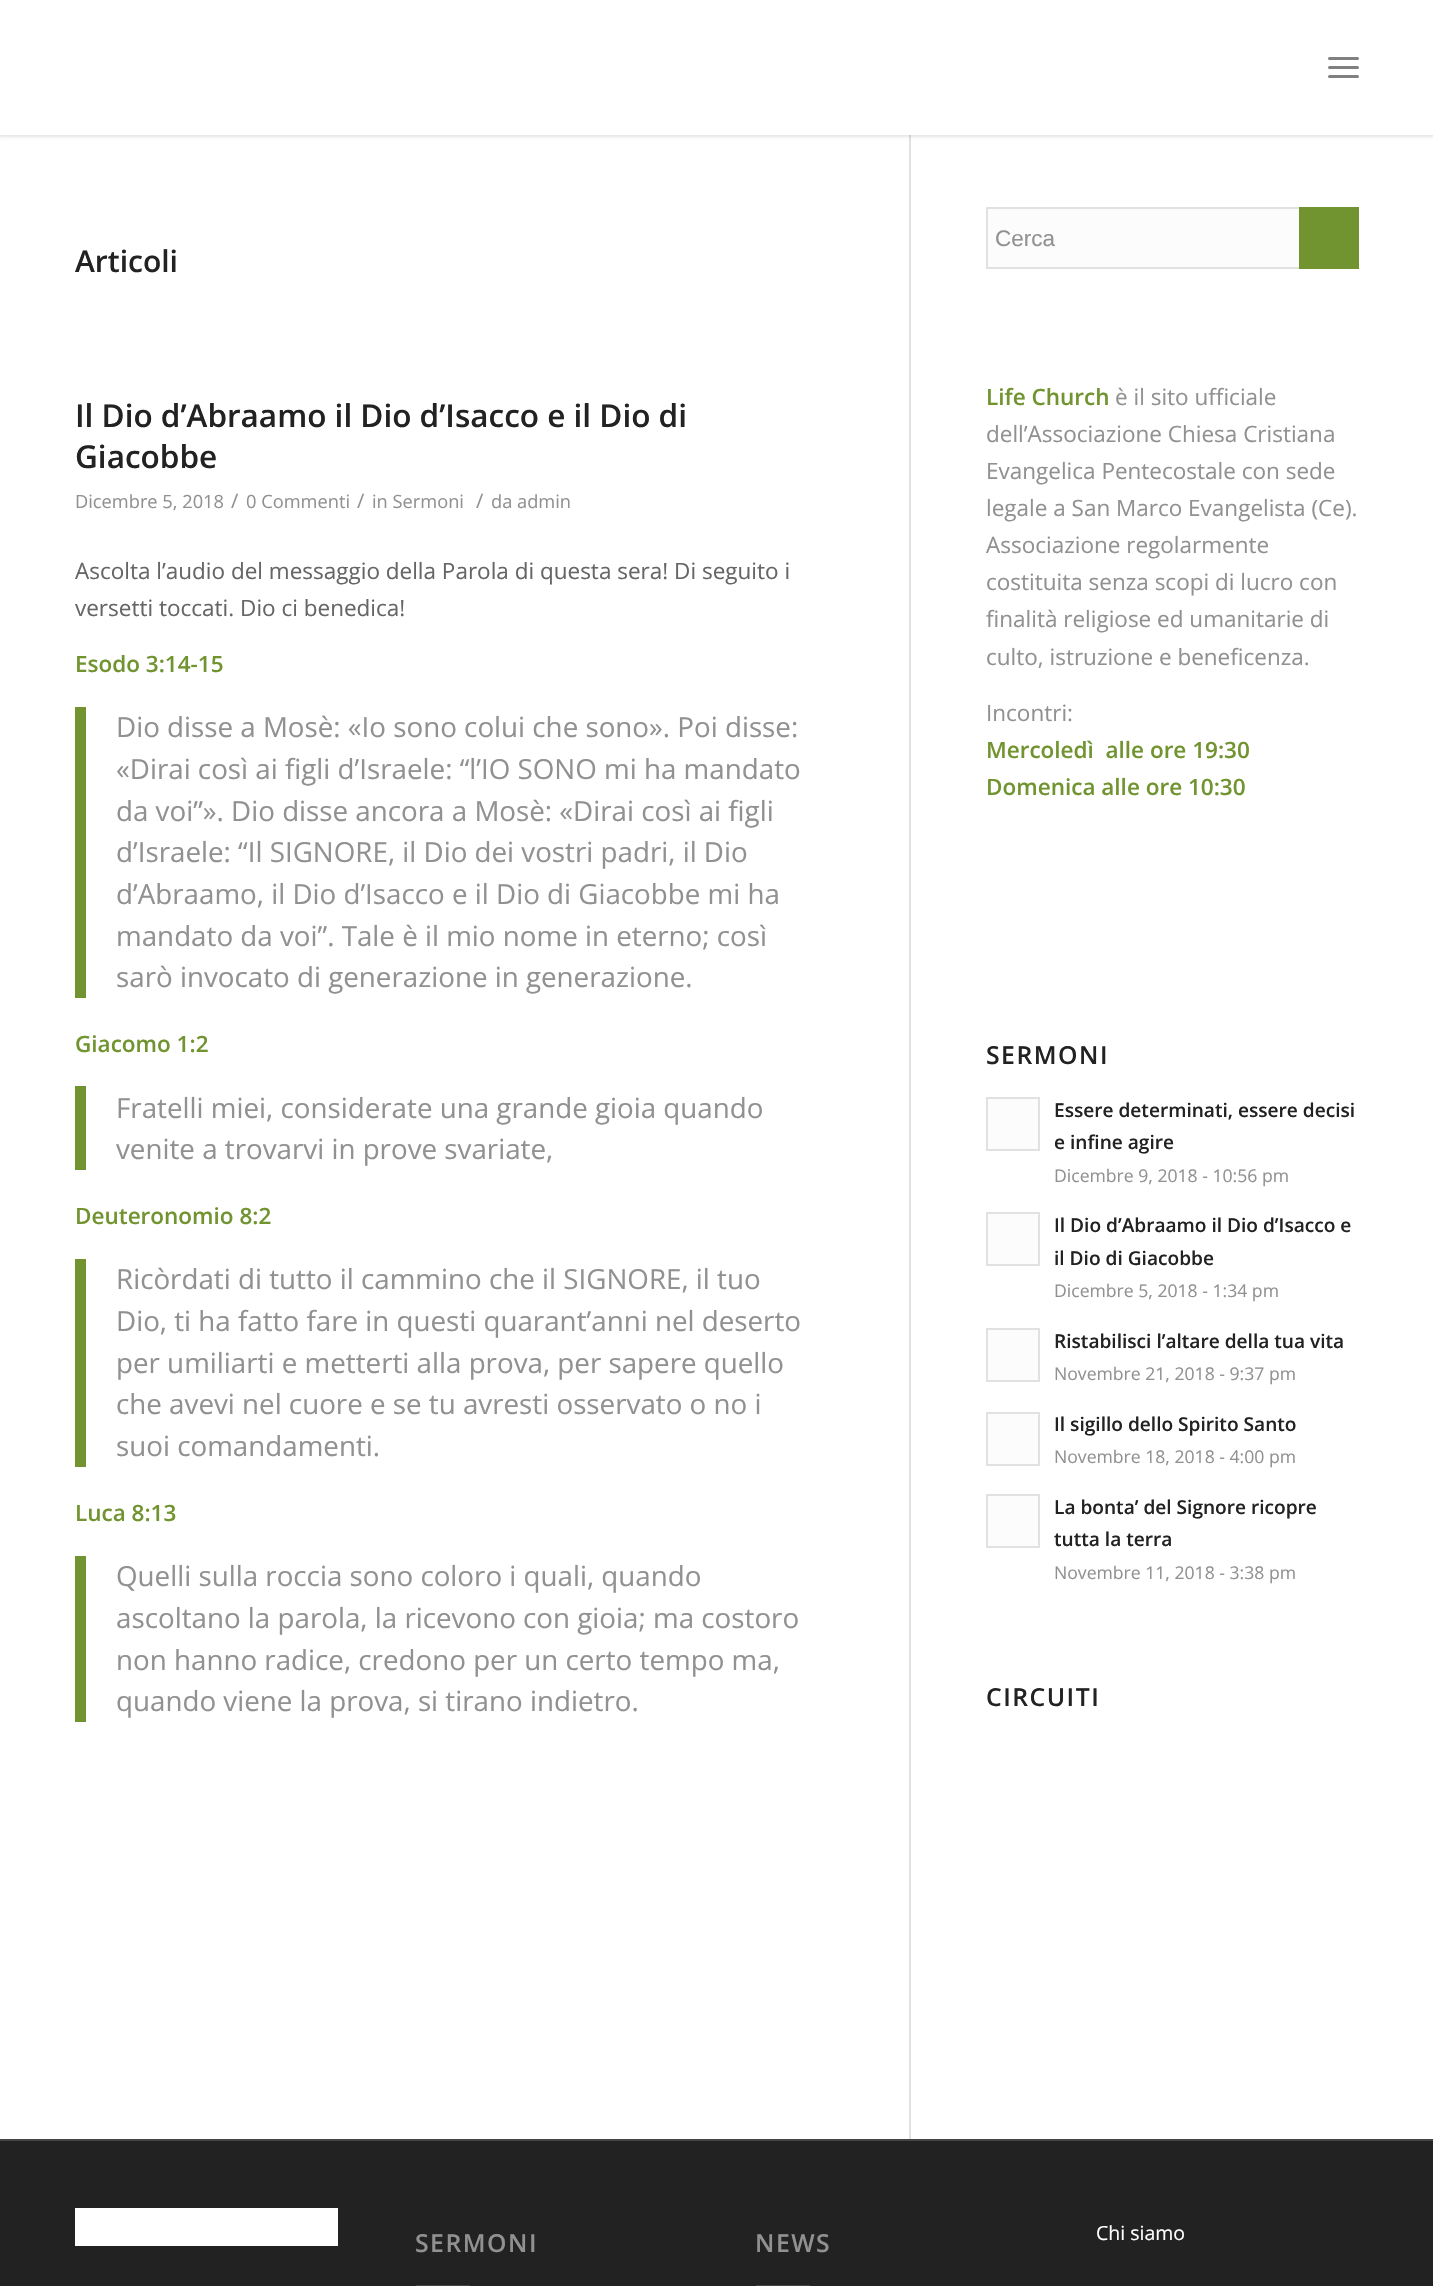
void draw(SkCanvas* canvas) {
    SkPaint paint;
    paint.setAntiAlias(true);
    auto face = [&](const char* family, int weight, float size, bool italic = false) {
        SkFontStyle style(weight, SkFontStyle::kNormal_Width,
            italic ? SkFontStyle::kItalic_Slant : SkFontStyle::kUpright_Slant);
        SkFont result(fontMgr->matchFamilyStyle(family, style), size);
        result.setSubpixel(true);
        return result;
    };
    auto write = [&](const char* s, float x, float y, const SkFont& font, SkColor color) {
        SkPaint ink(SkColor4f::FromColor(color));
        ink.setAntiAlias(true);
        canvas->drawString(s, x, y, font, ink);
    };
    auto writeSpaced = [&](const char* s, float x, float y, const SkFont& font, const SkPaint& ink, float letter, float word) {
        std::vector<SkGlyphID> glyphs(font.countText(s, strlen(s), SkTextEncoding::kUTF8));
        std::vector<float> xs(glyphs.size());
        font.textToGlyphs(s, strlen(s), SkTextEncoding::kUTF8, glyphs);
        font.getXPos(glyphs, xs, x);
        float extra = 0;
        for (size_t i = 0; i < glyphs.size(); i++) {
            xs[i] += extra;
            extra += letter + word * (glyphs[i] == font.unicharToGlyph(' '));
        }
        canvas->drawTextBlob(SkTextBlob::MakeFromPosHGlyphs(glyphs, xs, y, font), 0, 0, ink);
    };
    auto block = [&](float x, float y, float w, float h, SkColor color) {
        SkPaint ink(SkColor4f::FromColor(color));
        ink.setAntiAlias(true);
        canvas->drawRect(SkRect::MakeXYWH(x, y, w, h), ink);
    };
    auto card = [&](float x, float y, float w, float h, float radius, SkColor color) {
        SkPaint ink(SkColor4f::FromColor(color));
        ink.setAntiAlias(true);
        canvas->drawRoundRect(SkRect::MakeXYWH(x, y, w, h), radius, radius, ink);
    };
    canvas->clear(SK_ColorWHITE);
    block(909, 132, 2, 2007, SkColorSetRGB(225, 225, 225));
    paint.setColor(SkColorSetARGB(26, 0, 0, 0));
    paint.setMaskFilter(SkMaskFilter::MakeBlur(kNormal_SkBlurStyle, 1.5f));
    canvas->drawRect(SkRect::MakeXYWH(-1, -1, 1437, 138), paint);
    paint.setMaskFilter(nullptr);
    block(0, 0, 1433, 135, SK_ColorWHITE);
    card(1328, 66, 31, 3, 1.5f, SkColorSetRGB(128, 128, 128));
    card(1328, 57, 31, 3, 1.5f, SkColorSetRGB(128, 128, 128));
    card(1328, 75, 31, 3, 1.5f, SkColorSetRGB(128, 128, 128));
    auto kFont1 = face("Open Sans", 600, 30);
    write("Articoli", 75, 272, kFont1, SkColorSetRGB(34, 34, 34));
    auto kFont2 = face("Open Sans", 600, 31.5f);
    write("Il Dio d’Abraamo il Dio d’Isacco e il Dio di", 75, 427, kFont2, SkColorSetRGB(34, 34, 34));
    write("Giacobbe", 75, 468, kFont2, SkColorSetRGB(34, 34, 34));
    auto kFont3 = face("Open Sans", 400, 18.25f);
    write("Dicembre 5, 2018", 75, 508, kFont3, SkColorSetRGB(145, 145, 145));
    auto kFont4 = face("Open Sans", 400, 20);
    write("/", 231, 508, kFont4, SkColorSetRGB(145, 145, 145));
    write("0 Commenti", 246, 508, kFont3, SkColorSetRGB(145, 145, 145));
    write("/", 357, 508, kFont4, SkColorSetRGB(145, 145, 145));
    write("in Sermoni", 372, 508, kFont3, SkColorSetRGB(145, 145, 145));
    write("/", 476, 508, kFont4, SkColorSetRGB(145, 145, 145));
    write("da admin", 491, 508, kFont3, SkColorSetRGB(145, 145, 145));
    auto kFont5 = face("Open Sans", 400, 22.5f);
    write("Ascolta l’audio del messaggio della Parola di questa sera! Di seguito i", 75, 579, kFont5, SkColorSetRGB(102, 102, 102));
    write("versetti toccati. Dio ci benedica!", 75, 616, kFont5, SkColorSetRGB(102, 102, 102));
    auto kFont6 = face("Open Sans", 600, 22.5f);
    write("Esodo 3:14-15", 75, 672, kFont6, SkColorSetRGB(113, 148, 48));
    block(75, 707, 11, 291, SkColorSetRGB(113, 148, 48));
    auto kFont7 = face("Open Sans", 400, 27.75f);
    write("Dio disse a Mosè: «Io sono colui che sono». Poi disse:", 116, 737, kFont7, SkColorSetRGB(145, 145, 145));
    write("«Dirai così ai figli d’Israele: “l’IO SONO mi ha mandato", 116, 779, kFont7, SkColorSetRGB(145, 145, 145));
    write("da voi”». Dio disse ancora a Mosè: «Dirai così ai figli", 116, 821, kFont7, SkColorSetRGB(145, 145, 145));
    write("d’Israele: “Il SIGNORE, il Dio dei vostri padri, il Dio", 116, 862, kFont7, SkColorSetRGB(145, 145, 145));
    write("d’Abraamo, il Dio d’Isacco e il Dio di Giacobbe mi ha", 116, 904, kFont7, SkColorSetRGB(145, 145, 145));
    write("mandato da voi”. Tale è il mio nome in eterno; così", 116, 946, kFont7, SkColorSetRGB(145, 145, 145));
    write("sarò invocato di generazione in generazione.", 116, 987, kFont7, SkColorSetRGB(145, 145, 145));
    write("Giacomo 1:2", 75, 1052, kFont6, SkColorSetRGB(113, 148, 48));
    block(75, 1086, 11, 84, SkColorSetRGB(113, 148, 48));
    write("Fratelli miei, considerate una grande gioia quando", 116, 1118, kFont7, SkColorSetRGB(145, 145, 145));
    write("venite a trovarvi in prove svariate,", 116, 1159, kFont7, SkColorSetRGB(145, 145, 145));
    write("Deuteronomio 8:2", 75, 1224, kFont6, SkColorSetRGB(113, 148, 48));
    block(75, 1259, 11, 208, SkColorSetRGB(113, 148, 48));
    write("Ricòrdati di tutto il cammino che il SIGNORE, il tuo", 116, 1289, kFont7, SkColorSetRGB(145, 145, 145));
    write("Dio, ti ha fatto fare in questi quarant’anni nel deserto", 116, 1331, kFont7, SkColorSetRGB(145, 145, 145));
    write("per umiliarti e metterti alla prova, per sapere quello", 116, 1373, kFont7, SkColorSetRGB(145, 145, 145));
    write("che avevi nel cuore e se tu avresti osservato o no i", 116, 1414, kFont7, SkColorSetRGB(145, 145, 145));
    write("suoi comandamenti.", 116, 1456, kFont7, SkColorSetRGB(145, 145, 145));
    write("Luca 8:13", 75, 1521, kFont6, SkColorSetRGB(113, 148, 48));
    block(75, 1556, 11, 166, SkColorSetRGB(113, 148, 48));
    write("Quelli sulla roccia sono coloro i quali, quando", 116, 1586, kFont7, SkColorSetRGB(145, 145, 145));
    write("ascoltano la parola, la ricevono con gioia; ma costoro", 116, 1628, kFont7, SkColorSetRGB(145, 145, 145));
    write("non hanno radice, credono per un certo tempo ma,", 116, 1670, kFont7, SkColorSetRGB(145, 145, 145));
    write("quando viene la prova, si tirano indietro.", 116, 1711, kFont7, SkColorSetRGB(145, 145, 145));
    block(988, 209, 311, 58, SkColorSetRGB(252, 252, 252));
    paint.setStyle(SkPaint::kStroke_Style);
    paint.setStrokeWidth(2);
    paint.setColor(SkColorSetRGB(225, 225, 225));
    canvas->drawRect(SkRect::MakeXYWH(987, 208, 371, 60), paint);
    auto kFont8 = face("Liberation Sans", 400, 22.5f);
    write("Cerca", 995, 246, kFont8, SkColorSetRGB(145, 145, 145));
    block(1299, 207, 60, 62, SkColorSetRGB(113, 148, 48));
    write("Life Church", 986, 405, kFont6, SkColorSetRGB(113, 148, 48));
    write("è il sito ufficiale", 1115, 405, kFont5, SkColorSetRGB(145, 145, 145));
    write("dell’Associazione Chiesa Cristiana", 986, 442, kFont5, SkColorSetRGB(145, 145, 145));
    write("Evangelica Pentecostale con sede", 986, 479, kFont5, SkColorSetRGB(145, 145, 145));
    write("legale a San Marco Evangelista (Ce).", 986, 516, kFont5, SkColorSetRGB(145, 145, 145));
    write("Associazione regolarmente", 986, 553, kFont5, SkColorSetRGB(145, 145, 145));
    write("costituita senza scopi di lucro con", 986, 590, kFont5, SkColorSetRGB(145, 145, 145));
    write("finalità religiose ed umanitarie di", 986, 627, kFont5, SkColorSetRGB(145, 145, 145));
    write("culto, istruzione e beneficenza.", 986, 665, kFont5, SkColorSetRGB(145, 145, 145));
    write("Incontri:", 986, 721, kFont5, SkColorSetRGB(145, 145, 145));
    write("Mercoledì  alle ore 19:30", 986, 758, kFont6, SkColorSetRGB(113, 148, 48));
    write("Domenica alle ore 10:30", 986, 795, kFont6, SkColorSetRGB(113, 148, 48));
    auto kFont9 = face("Open Sans", 600, 24.75f);
    paint.setStyle(SkPaint::kFill_Style);
    paint.setColor(SkColorSetRGB(34, 34, 34));
    writeSpaced("SERMONI", 986, 1064, kFont9, paint, 1.5f, 0);
    paint.setColor(SkColorSetRGB(252, 252, 252));
    canvas->drawRect(SkRect::MakeXYWH(987, 1098, 52, 52), paint);
    paint.setStyle(SkPaint::kStroke_Style);
    paint.setColor(SkColorSetRGB(225, 225, 225));
    canvas->drawRect(SkRect::MakeXYWH(987, 1098, 52, 52), paint);
    auto kFont10 = face("Open Sans", 600, 19.1f);
    write("Essere determinati, essere decisi", 1054, 1117, kFont10, SkColorSetRGB(34, 34, 34));
    write("e infine agire", 1054, 1149, kFont10, SkColorSetRGB(34, 34, 34));
    auto kFont11 = face("Open Sans", 400, 17.6f);
    write("Dicembre 9, 2018 - 10:56 pm", 1054, 1182, kFont11, SkColorSetRGB(145, 145, 145));
    paint.setStyle(SkPaint::kFill_Style);
    paint.setColor(SkColorSetRGB(252, 252, 252));
    canvas->drawRect(SkRect::MakeXYWH(987, 1213, 52, 52), paint);
    paint.setStyle(SkPaint::kStroke_Style);
    paint.setColor(SkColorSetRGB(225, 225, 225));
    canvas->drawRect(SkRect::MakeXYWH(987, 1213, 52, 52), paint);
    write("Il Dio d’Abraamo il Dio d’Isacco e", 1054, 1232, kFont10, SkColorSetRGB(34, 34, 34));
    write("il Dio di Giacobbe", 1054, 1265, kFont10, SkColorSetRGB(34, 34, 34));
    write("Dicembre 5, 2018 - 1:34 pm", 1054, 1297, kFont11, SkColorSetRGB(145, 145, 145));
    paint.setStyle(SkPaint::kFill_Style);
    paint.setColor(SkColorSetRGB(252, 252, 252));
    canvas->drawRect(SkRect::MakeXYWH(987, 1329, 52, 52), paint);
    paint.setStyle(SkPaint::kStroke_Style);
    paint.setColor(SkColorSetRGB(225, 225, 225));
    canvas->drawRect(SkRect::MakeXYWH(987, 1329, 52, 52), paint);
    write("Ristabilisci l’altare della tua vita", 1054, 1348, kFont10, SkColorSetRGB(34, 34, 34));
    write("Novembre 21, 2018 - 9:37 pm", 1054, 1380, kFont11, SkColorSetRGB(145, 145, 145));
    paint.setStyle(SkPaint::kFill_Style);
    paint.setColor(SkColorSetRGB(252, 252, 252));
    canvas->drawRect(SkRect::MakeXYWH(987, 1413, 52, 52), paint);
    paint.setStyle(SkPaint::kStroke_Style);
    paint.setColor(SkColorSetRGB(225, 225, 225));
    canvas->drawRect(SkRect::MakeXYWH(987, 1413, 52, 52), paint);
    write("Il sigillo dello Spirito Santo", 1054, 1431, kFont10, SkColorSetRGB(34, 34, 34));
    write("Novembre 18, 2018 - 4:00 pm", 1054, 1463, kFont11, SkColorSetRGB(145, 145, 145));
    paint.setStyle(SkPaint::kFill_Style);
    paint.setColor(SkColorSetRGB(252, 252, 252));
    canvas->drawRect(SkRect::MakeXYWH(987, 1495, 52, 52), paint);
    paint.setStyle(SkPaint::kStroke_Style);
    paint.setColor(SkColorSetRGB(225, 225, 225));
    canvas->drawRect(SkRect::MakeXYWH(987, 1495, 52, 52), paint);
    write("La bonta’ del Signore ricopre", 1054, 1514, kFont10, SkColorSetRGB(34, 34, 34));
    write("tutta la terra", 1054, 1546, kFont10, SkColorSetRGB(34, 34, 34));
    write("Novembre 11, 2018 - 3:38 pm", 1054, 1579, kFont11, SkColorSetRGB(145, 145, 145));
    paint.setStyle(SkPaint::kFill_Style);
    paint.setColor(SkColorSetRGB(34, 34, 34));
    writeSpaced("CIRCUITI", 986, 1706, kFont9, paint, 1.5f, 0);
    block(0, 2141, 1433, 145, SkColorSetRGB(34, 34, 34));
    block(0, 2139, 1433, 2, SkColorSetRGB(68, 68, 68));
    block(75, 2208, 263, 38, SK_ColorWHITE);
    paint.setColor(SkColorSetRGB(145, 145, 145));
    writeSpaced("SERMONI", 415, 2252, kFont9, paint, 1.5f, 0);
    paint.setStyle(SkPaint::kStroke_Style);
    paint.setColor(SkColorSetRGB(68, 68, 68));
    canvas->drawRect(SkRect::MakeXYWH(417, 2286, 52, 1), paint);
    paint.setStyle(SkPaint::kFill_Style);
    paint.setColor(SkColorSetRGB(145, 145, 145));
    writeSpaced("NEWS", 755, 2252, kFont9, paint, 1.5f, 0);
    paint.setStyle(SkPaint::kStroke_Style);
    paint.setColor(SkColorSetRGB(68, 68, 68));
    canvas->drawRect(SkRect::MakeXYWH(757, 2286, 52, 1), paint);
    auto kFont12 = face("Open Sans", 400, 19.5f);
    write("Chi siamo", 1096, 2240, kFont12, SK_ColorWHITE);
}
